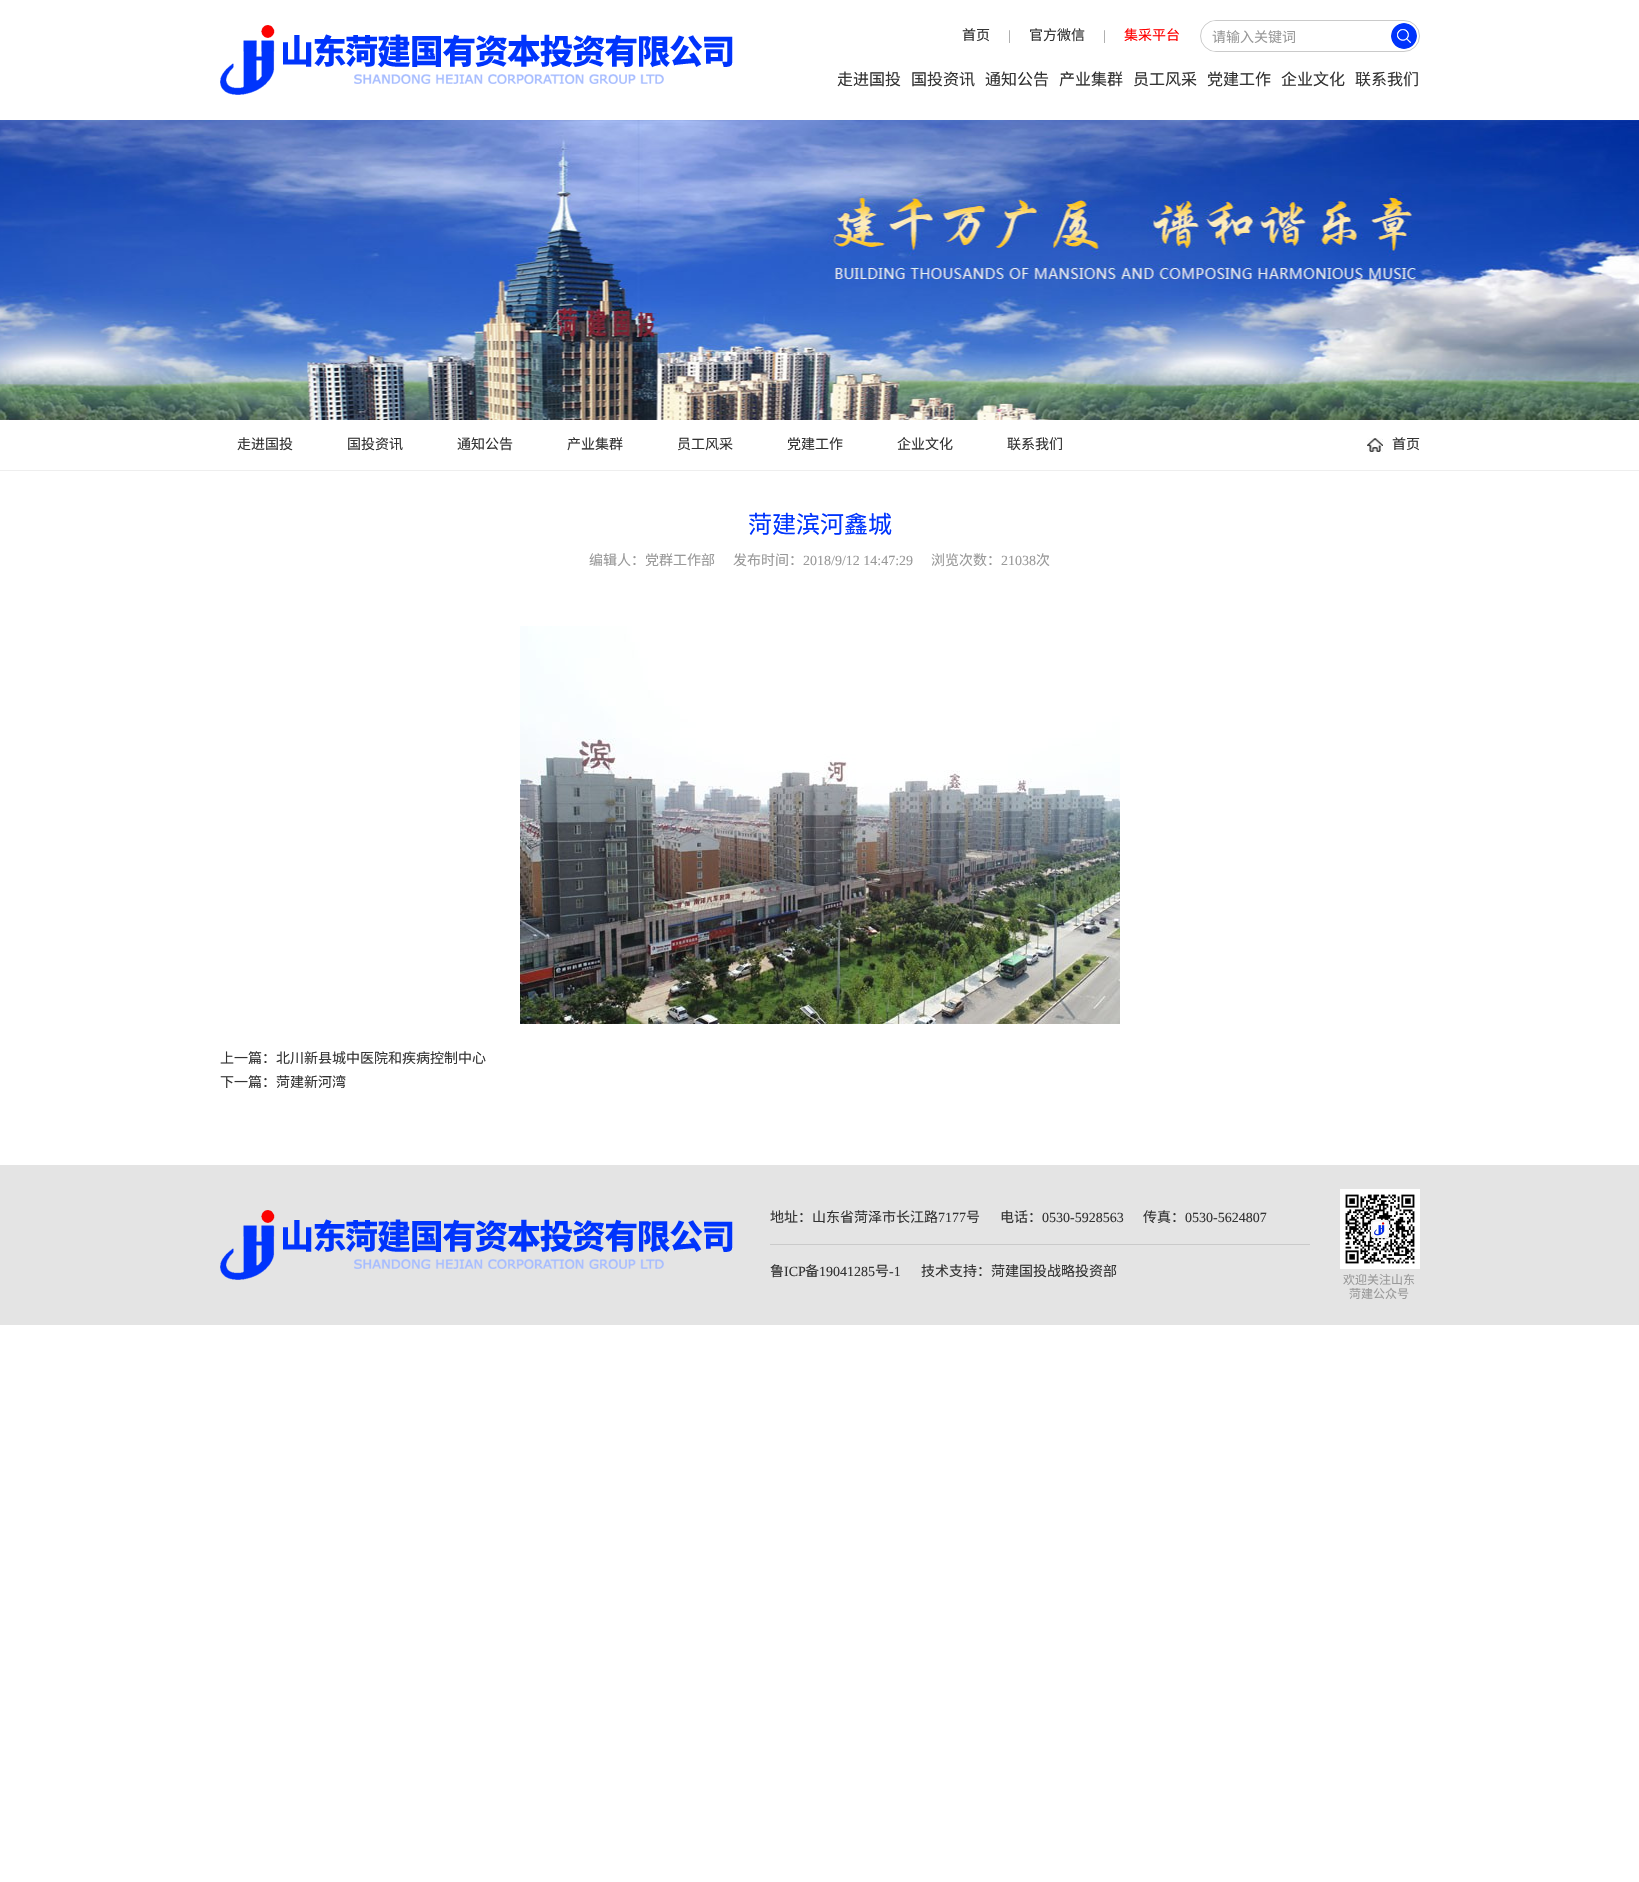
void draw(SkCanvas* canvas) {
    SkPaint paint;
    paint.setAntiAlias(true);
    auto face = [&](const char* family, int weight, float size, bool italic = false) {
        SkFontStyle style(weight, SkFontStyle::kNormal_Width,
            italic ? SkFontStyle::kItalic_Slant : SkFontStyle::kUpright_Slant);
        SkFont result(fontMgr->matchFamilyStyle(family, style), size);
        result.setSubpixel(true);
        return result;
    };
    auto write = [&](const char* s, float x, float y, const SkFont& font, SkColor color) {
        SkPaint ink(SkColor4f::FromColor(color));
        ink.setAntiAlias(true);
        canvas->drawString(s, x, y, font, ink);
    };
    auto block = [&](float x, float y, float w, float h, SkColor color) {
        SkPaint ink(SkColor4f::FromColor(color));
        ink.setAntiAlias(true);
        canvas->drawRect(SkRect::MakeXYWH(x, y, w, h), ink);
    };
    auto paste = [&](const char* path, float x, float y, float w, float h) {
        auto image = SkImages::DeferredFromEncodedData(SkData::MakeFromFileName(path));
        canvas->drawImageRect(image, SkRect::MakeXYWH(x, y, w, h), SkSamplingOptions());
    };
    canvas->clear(SK_ColorWHITE);
    paste("pic1.png", 220, 25, 513, 70);
    auto kFont1 = face("Noto Sans CJK SC", 400, 14);
    write("首页", 962, 40, kFont1, SkColorSetRGB(51, 51, 51));
    auto kFont2 = face("Liberation Serif", 400, 14);
    write("|", 1008, 40, kFont2, SkColorSetRGB(153, 153, 153));
    write("官方微信", 1029, 40, kFont1, SkColorSetRGB(51, 51, 51));
    write("|", 1103, 40, kFont2, SkColorSetRGB(153, 153, 153));
    write("集采平台", 1124, 40, kFont1, SkColorSetRGB(255, 0, 0));
    paint.setStyle(SkPaint::kStroke_Style);
    paint.setStrokeWidth(1);
    paint.setColor(SkColorSetRGB(202, 202, 202));
    canvas->drawRoundRect(SkRect::MakeXYWH(1200.5f, 20.5f, 219, 31), 15.5f, 15.5f, paint);
    canvas->save();
    canvas->clipPath(SkPathBuilder().moveTo(1216, 21).lineTo(1404, 21).cubicTo(1412.5f, 21, 1419, 27.5f, 1419, 36).cubicTo(1419, 44.5f, 1412.5f, 51, 1404, 51).lineTo(1216, 51).cubicTo(1207.5f, 51, 1201, 44.5f, 1201, 36).cubicTo(1201, 27.5f, 1207.5f, 21, 1216, 21).close().detach(), true);
    block(1210, 21, 174, 30, SK_ColorWHITE);
    canvas->restore();
    write("请输入关键词", 1212, 42, kFont1, SkColorSetRGB(153, 153, 153));
    paint.setStyle(SkPaint::kFill_Style);
    paint.setColor(SkColorSetRGB(239, 239, 239));
    canvas->drawCircle(1404, 36, 13, paint);
    paste("pic2.png", 1391, 23, 26, 26);
    auto kFont3 = face("Noto Sans CJK SC", 400, 16);
    write("走进国投", 837, 85, kFont3, SkColorSetRGB(51, 51, 51));
    write("国投资讯", 911, 85, kFont3, SkColorSetRGB(51, 51, 51));
    write("通知公告", 985, 85, kFont3, SkColorSetRGB(51, 51, 51));
    write("产业集群", 1059, 85, kFont3, SkColorSetRGB(51, 51, 51));
    write("员工风采", 1133, 85, kFont3, SkColorSetRGB(51, 51, 51));
    write("党建工作", 1207, 85, kFont3, SkColorSetRGB(51, 51, 51));
    write("企业文化", 1281, 85, kFont3, SkColorSetRGB(51, 51, 51));
    write("联系我们", 1355, 85, kFont3, SkColorSetRGB(51, 51, 51));
    paste("pic3.png", 0, 120, 1639, 300);
    block(0, 470, 1639, 1, SkColorSetRGB(238, 238, 238));
    write("走进国投", 237, 449, kFont1, SkColorSetRGB(51, 51, 51));
    write("国投资讯", 347, 449, kFont1, SkColorSetRGB(51, 51, 51));
    write("通知公告", 457, 449, kFont1, SkColorSetRGB(51, 51, 51));
    write("产业集群", 567, 449, kFont1, SkColorSetRGB(51, 51, 51));
    write("员工风采", 677, 449, kFont1, SkColorSetRGB(51, 51, 51));
    write("党建工作", 787, 449, kFont1, SkColorSetRGB(51, 51, 51));
    write("企业文化", 897, 449, kFont1, SkColorSetRGB(51, 51, 51));
    write("联系我们", 1007, 449, kFont1, SkColorSetRGB(51, 51, 51));
    paste("pic4.png", 1367, 438, 16, 14);
    write("首页", 1392, 449, kFont1, SkColorSetRGB(51, 51, 51));
    auto kFont4 = face("Noto Sans CJK SC", 400, 24);
    write("菏建滨河鑫城", 748, 533, kFont4, SkColorSetRGB(0, 52, 252));
    write("编辑人：党群工作部", 589, 565, kFont1, SkColorSetRGB(153, 153, 153));
    write("发布时间：", 733, 565, kFont1, SkColorSetRGB(153, 153, 153));
    write("2018/9/12 14:47:29", 803, 565, kFont2, SkColorSetRGB(153, 153, 153));
    write("浏览次数：", 931, 565, kFont1, SkColorSetRGB(153, 153, 153));
    write("21038", 1001, 565, kFont2, SkColorSetRGB(153, 153, 153));
    write("次", 1036, 565, kFont1, SkColorSetRGB(153, 153, 153));
    paste("pic5.png", 520, 626, 600, 398);
    write("上一篇：北川新县城中医院和疾病控制中心", 220, 1063, kFont1, SkColorSetRGB(51, 51, 51));
    write("下一篇：菏建新河湾", 220, 1087, kFont1, SkColorSetRGB(51, 51, 51));
    block(0, 1165, 1639, 160, SkColorSetRGB(228, 228, 228));
    paste("pic6.png", 220, 1210, 513, 70);
    block(770, 1244, 540, 1, SkColorSetRGB(202, 202, 202));
    write("地址：山东省菏泽市长江路", 770, 1222, kFont1, SkColorSetRGB(51, 51, 51));
    write("7177", 938, 1222, kFont2, SkColorSetRGB(51, 51, 51));
    write("号", 966, 1222, kFont1, SkColorSetRGB(51, 51, 51));
    write("电话：", 1000, 1222, kFont1, SkColorSetRGB(51, 51, 51));
    write("0530-5928563", 1042, 1222, kFont2, SkColorSetRGB(51, 51, 51));
    write("传真：", 1143, 1222, kFont1, SkColorSetRGB(51, 51, 51));
    write("0530-5624807", 1185, 1222, kFont2, SkColorSetRGB(51, 51, 51));
    write("鲁", 770, 1276, kFont1, SkColorSetRGB(51, 51, 51));
    write("ICP", 784, 1276, kFont2, SkColorSetRGB(51, 51, 51));
    write("备", 805, 1276, kFont1, SkColorSetRGB(51, 51, 51));
    write("19041285", 819, 1276, kFont2, SkColorSetRGB(51, 51, 51));
    write("号", 875, 1276, kFont1, SkColorSetRGB(51, 51, 51));
    write("-1", 889, 1276, kFont2, SkColorSetRGB(51, 51, 51));
    write("技术支持：菏建国投战略投资部", 921, 1276, kFont1, SkColorSetRGB(51, 51, 51));
    block(1340, 1189, 80, 80, SK_ColorWHITE);
    paste("pic7.png", 1345, 1194, 70, 70);
    auto kFont5 = face("Noto Sans CJK SC", 400, 12);
    write("欢迎关注山东", 1343, 1284, kFont5, SkColorSetRGB(153, 153, 153));
    write("菏建公众号", 1349, 1298, kFont5, SkColorSetRGB(153, 153, 153));
}
